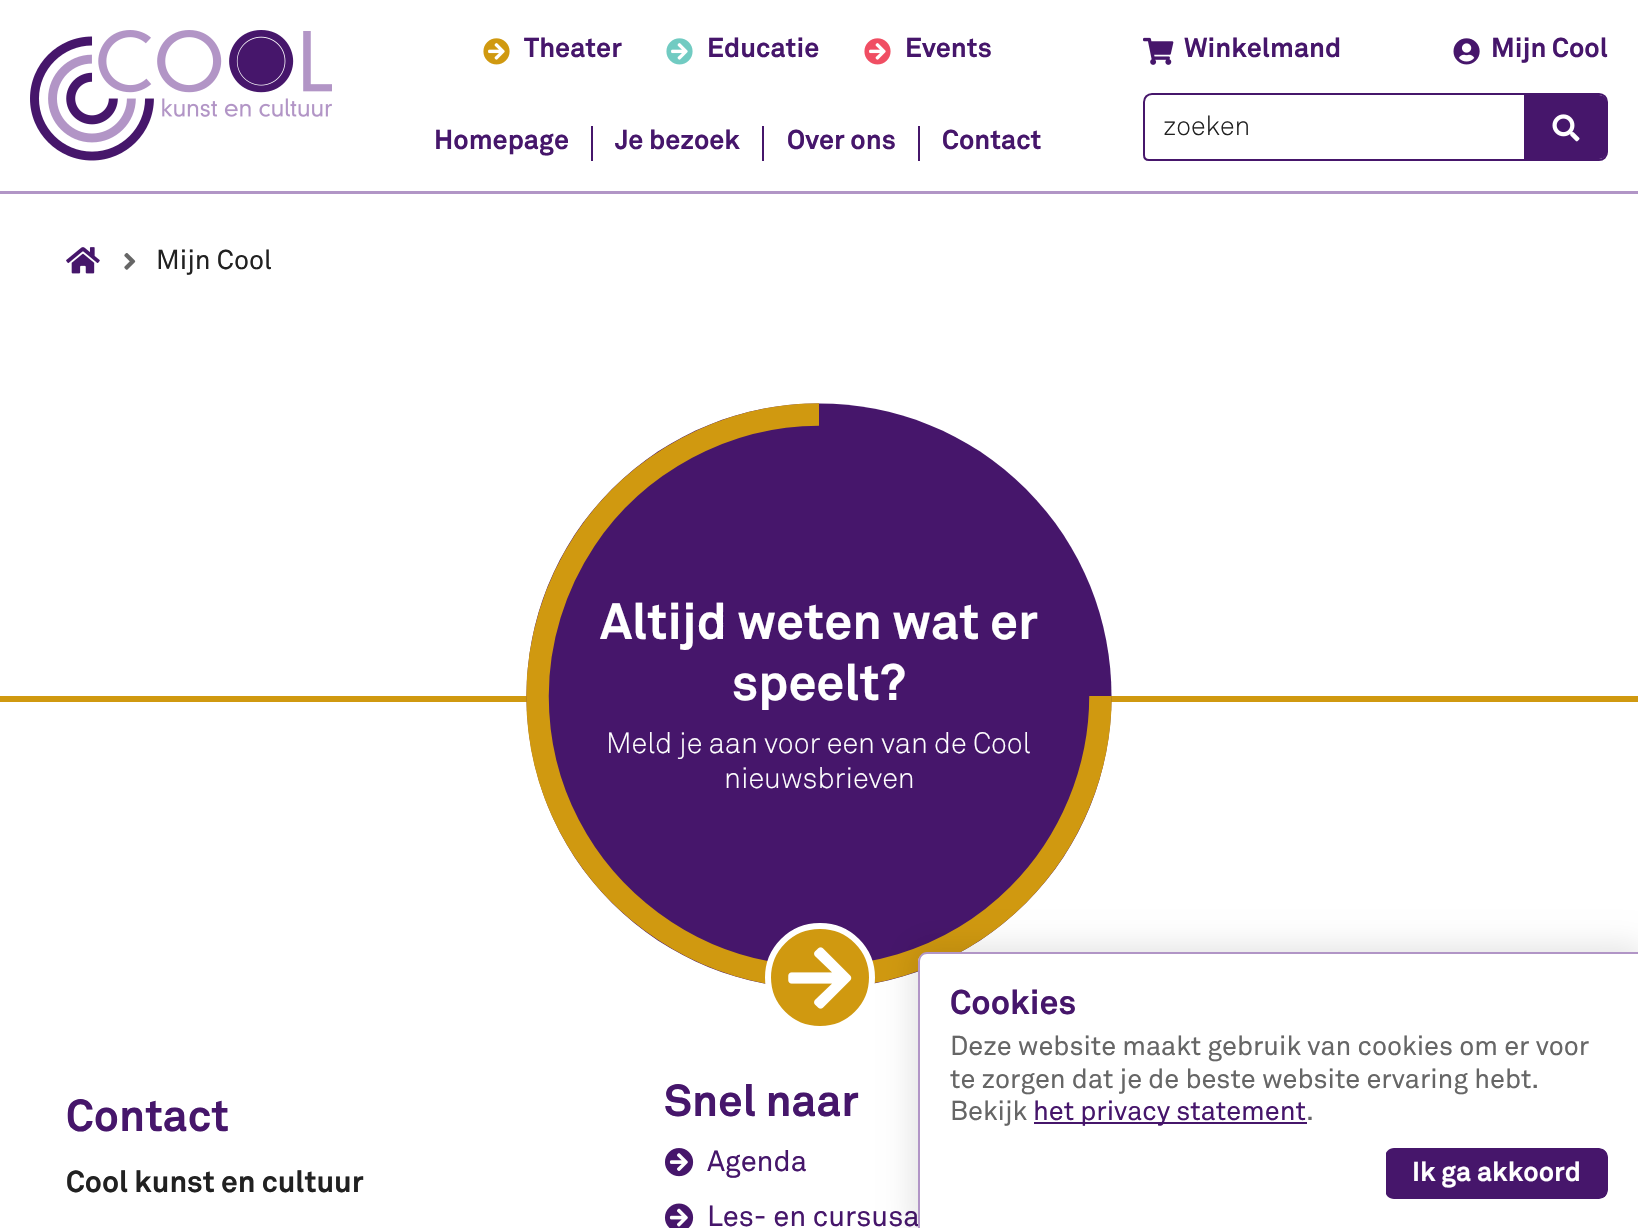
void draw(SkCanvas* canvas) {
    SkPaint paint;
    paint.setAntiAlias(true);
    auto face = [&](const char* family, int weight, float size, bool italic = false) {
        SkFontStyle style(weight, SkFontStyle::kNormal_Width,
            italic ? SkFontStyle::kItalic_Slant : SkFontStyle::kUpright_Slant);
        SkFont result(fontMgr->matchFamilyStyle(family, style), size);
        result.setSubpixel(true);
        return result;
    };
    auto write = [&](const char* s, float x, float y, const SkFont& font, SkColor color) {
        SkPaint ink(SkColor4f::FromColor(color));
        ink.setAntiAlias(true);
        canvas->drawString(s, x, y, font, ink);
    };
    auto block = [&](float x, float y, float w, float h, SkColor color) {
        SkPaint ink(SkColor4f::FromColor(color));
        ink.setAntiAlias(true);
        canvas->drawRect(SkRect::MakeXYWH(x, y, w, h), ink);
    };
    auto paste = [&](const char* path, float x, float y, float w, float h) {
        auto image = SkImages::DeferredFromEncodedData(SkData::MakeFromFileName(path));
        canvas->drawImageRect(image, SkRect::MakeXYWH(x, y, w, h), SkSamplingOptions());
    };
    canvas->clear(SK_ColorWHITE);
    block(0, 191, 1638, 3, SkColorSetRGB(177, 149, 198));
    paste("pic1.png", 30, 30, 302, 131);
    paste("pic2.png", 483, 38, 27, 27);
    auto kFont1 = face("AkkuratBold", 700, 27);
    write("Theater", 524, 57, kFont1, SkColorSetRGB(70, 22, 107));
    paste("pic3.png", 666, 38, 27, 27);
    write("Educatie", 707, 57, kFont1, SkColorSetRGB(70, 22, 107));
    paste("pic4.png", 864, 38, 27, 27);
    write("Events", 905, 57, kFont1, SkColorSetRGB(70, 22, 107));
    paste("pic5.png", 1143, 37, 31, 28);
    write("Winkelmand", 1184, 57, kFont1, SkColorSetRGB(70, 22, 107));
    paste("pic6.png", 1453, 38, 27, 27);
    write("Mijn Cool", 1491, 57, kFont1, SkColorSetRGB(70, 22, 107));
    write("Homepage", 434, 149, kFont1, SkColorSetRGB(70, 22, 107));
    block(591, 126, 2, 35, SkColorSetRGB(70, 22, 107));
    write("Je bezoek", 615, 149, kFont1, SkColorSetRGB(70, 22, 107));
    block(762, 126, 2, 35, SkColorSetRGB(70, 22, 107));
    write("Over ons", 787, 149, kFont1, SkColorSetRGB(70, 22, 107));
    block(918, 126, 2, 35, SkColorSetRGB(70, 22, 107));
    write("Contact", 942, 149, kFont1, SkColorSetRGB(70, 22, 107));
    paint.setStyle(SkPaint::kStroke_Style);
    paint.setStrokeWidth(2);
    paint.setColor(SkColorSetRGB(70, 22, 107));
    canvas->drawPath(SkPathBuilder().moveTo(1152, 94).lineTo(1525, 94).lineTo(1525, 160).lineTo(1149, 160).cubicTo(1146, 160, 1144, 158, 1144, 155).lineTo(1144, 102).cubicTo(1144, 97.5f, 1147.5f, 94, 1152, 94).close().detach(), paint);
    auto kFont2 = face("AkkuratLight", 300, 27);
    write("zoeken", 1163, 135, kFont2, SkColorSetRGB(33, 33, 33));
    canvas->drawPath(SkPathBuilder().moveTo(1525, 94).lineTo(1599, 94).cubicTo(1603.5f, 94, 1607, 97.5f, 1607, 102).lineTo(1607, 152).cubicTo(1607, 156.5f, 1603.5f, 160, 1599, 160).lineTo(1525, 160).close().detach(), paint);
    paint.setStyle(SkPaint::kFill_Style);
    canvas->drawPath(SkPathBuilder().moveTo(1526, 95).lineTo(1599, 95).cubicTo(1603.5f, 95, 1607, 98.5f, 1607, 103).lineTo(1607, 151).cubicTo(1607, 155.5f, 1603.5f, 159, 1599, 159).lineTo(1526, 159).close().detach(), paint);
    paste("pic7.png", 1552, 114, 28, 28);
    paste("pic8.png", 66, 247, 34, 27);
    paste("pic9.png", 124, 253, 12, 17);
    auto kFont3 = face("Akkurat", 400, 27);
    write("Mijn Cool", 156, 269, kFont3, SkColorSetRGB(33, 33, 33));
    block(0, 696, 1638, 6, SkColorSetRGB(208, 153, 16));
    canvas->drawPath(SkPathBuilder().moveTo(1026, 489).cubicTo(1140, 603, 1140, 789, 1026, 903).cubicTo(912, 1017, 726, 1017, 612, 903).cubicTo(498, 789, 498, 603, 612, 489).cubicTo(726, 375, 912, 375, 1026, 489).close().detach(), paint);
    paint.setStyle(SkPaint::kStroke_Style);
    paint.setStrokeWidth(22.5f);
    paint.setColor(SkColorSetRGB(208, 153, 16));
    canvas->drawPath(SkPathBuilder().moveTo(1100.5f, 696).cubicTo(1100.5f, 770, 1070.5f, 842.5f, 1018, 895).cubicTo(985.5f, 927.5f, 945, 951.5f, 901, 965).cubicTo(720.5f, 1020, 537.5f, 884.5f, 537.5f, 696).cubicTo(537.5f, 640.5f, 554.5f, 586, 585, 540).cubicTo(636.5f, 462.5f, 726, 414.5f, 819, 414.5f).detach(), paint);
    auto kFont4 = face("AkkuratBold", 700, 50.25f);
    write("Altijd weten wat er", 600, 639, kFont4, SK_ColorWHITE);
    write("speelt?", 732, 700, kFont4, SK_ColorWHITE);
    auto kFont5 = face("AkkuratLight", 300, 29);
    write("Meld je aan voor een van de Cool", 606, 753, kFont5, SK_ColorWHITE);
    write("nieuwsbrieven", 724, 788, kFont5, SK_ColorWHITE);
    paint.setStyle(SkPaint::kFill_Style);
    canvas->drawRoundRect(SkRect::MakeXYWH(768, 926, 104, 103), 51.5f, 51.5f, paint);
    paint.setStyle(SkPaint::kStroke_Style);
    paint.setStrokeWidth(6);
    paint.setColor(SK_ColorWHITE);
    canvas->drawRoundRect(SkRect::MakeXYWH(768, 926, 104, 103), 51.5f, 51.5f, paint);
    paste("pic10.png", 788, 947, 64, 62);
    auto kFont6 = face("AkkuratBold", 700, 44.25f);
    write("Contact", 66, 1131, kFont6, SkColorSetRGB(70, 22, 107));
    auto kFont7 = face("AkkuratBold", 700, 30);
    write("Cool kunst en cultuur", 66, 1192, kFont7, SkColorSetRGB(33, 33, 33));
    write("Snel naar", 664, 1116, kFont6, SkColorSetRGB(70, 22, 107));
    paste("pic11.png", 665, 1148, 29, 29);
    auto kFont8 = face("Akkurat", 400, 29);
    write("Agenda", 707, 1171, kFont8, SkColorSetRGB(70, 22, 107));
    paste("pic12.png", 664, 1203, 30, 25);
    write("Les- en cursusa", 707, 1226, kFont8, SkColorSetRGB(70, 22, 107));
    paint.setStyle(SkPaint::kFill_Style);
    paint.setColor(SkColorSetARGB(26, 0, 0, 0));
    paint.setMaskFilter(SkMaskFilter::MakeBlur(kNormal_SkBlurStyle, 15));
    canvas->drawRoundRect(SkRect::MakeXYWH(911, 945, 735, 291), 17, 17, paint);
    paint.setMaskFilter(nullptr);
    paint.setColor(SK_ColorWHITE);
    canvas->drawPath(SkPathBuilder().moveTo(927, 953).lineTo(1638, 953).lineTo(1638, 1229).lineTo(918, 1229).lineTo(918, 962).cubicTo(918, 957, 922, 953, 927, 953).close().detach(), paint);
    paint.setColor(SkColorSetRGB(177, 149, 198));
    canvas->drawPath(SkPathBuilder(SkPathFillType::kEvenOdd).moveTo(927, 952).lineTo(1638, 952).lineTo(1638, 1228).lineTo(918, 1228).lineTo(918, 962).cubicTo(918, 957, 922, 952, 927, 952).close().moveTo(927, 954).lineTo(1638, 954).lineTo(1638, 1228).lineTo(920, 1228).lineTo(920, 962).cubicTo(920, 957, 923, 954, 927, 954).close().detach(), paint);
    auto kFont9 = face("AkkuratBold", 700, 34);
    write("Cookies", 950, 1014, kFont9, SkColorSetRGB(70, 22, 107));
    write("Deze website maakt gebruik van cookies om er voor", 950, 1055, kFont3, SkColorSetRGB(102, 102, 102));
    write("te zorgen dat je de beste website ervaring hebt.", 950, 1088, kFont3, SkColorSetRGB(102, 102, 102));
    write("Bekijk", 950, 1120, kFont3, SkColorSetRGB(102, 102, 102));
    block(1034, 1122, 273, 2, SkColorSetRGB(70, 22, 107));
    write("het privacy statement", 1033, 1120, kFont3, SkColorSetRGB(70, 22, 107));
    write(".", 1306, 1120, kFont3, SkColorSetRGB(102, 102, 102));
    canvas->save();
    canvas->clipPath(SkPathBuilder().moveTo(1394, 1148).lineTo(1599, 1148).cubicTo(1604, 1148, 1608, 1152, 1608, 1157).lineTo(1608, 1190).cubicTo(1608, 1195, 1604, 1199, 1599, 1199).lineTo(1394, 1199).cubicTo(1389, 1199, 1385, 1195, 1385, 1190).lineTo(1385, 1157).cubicTo(1385, 1152, 1389, 1148, 1394, 1148).close().detach(), true);
    paint.setColor(SkColorSetRGB(70, 22, 107));
    canvas->drawPath(SkPathBuilder().moveTo(1386, 1148).lineTo(1599, 1148).cubicTo(1604, 1148, 1608, 1152, 1608, 1157).lineTo(1608, 1190).cubicTo(1608, 1195, 1604, 1199, 1599, 1199).lineTo(1386, 1199).close().detach(), paint);
    canvas->restore();
    write("Ik ga akkoord", 1412, 1181, kFont1, SK_ColorWHITE);
}
